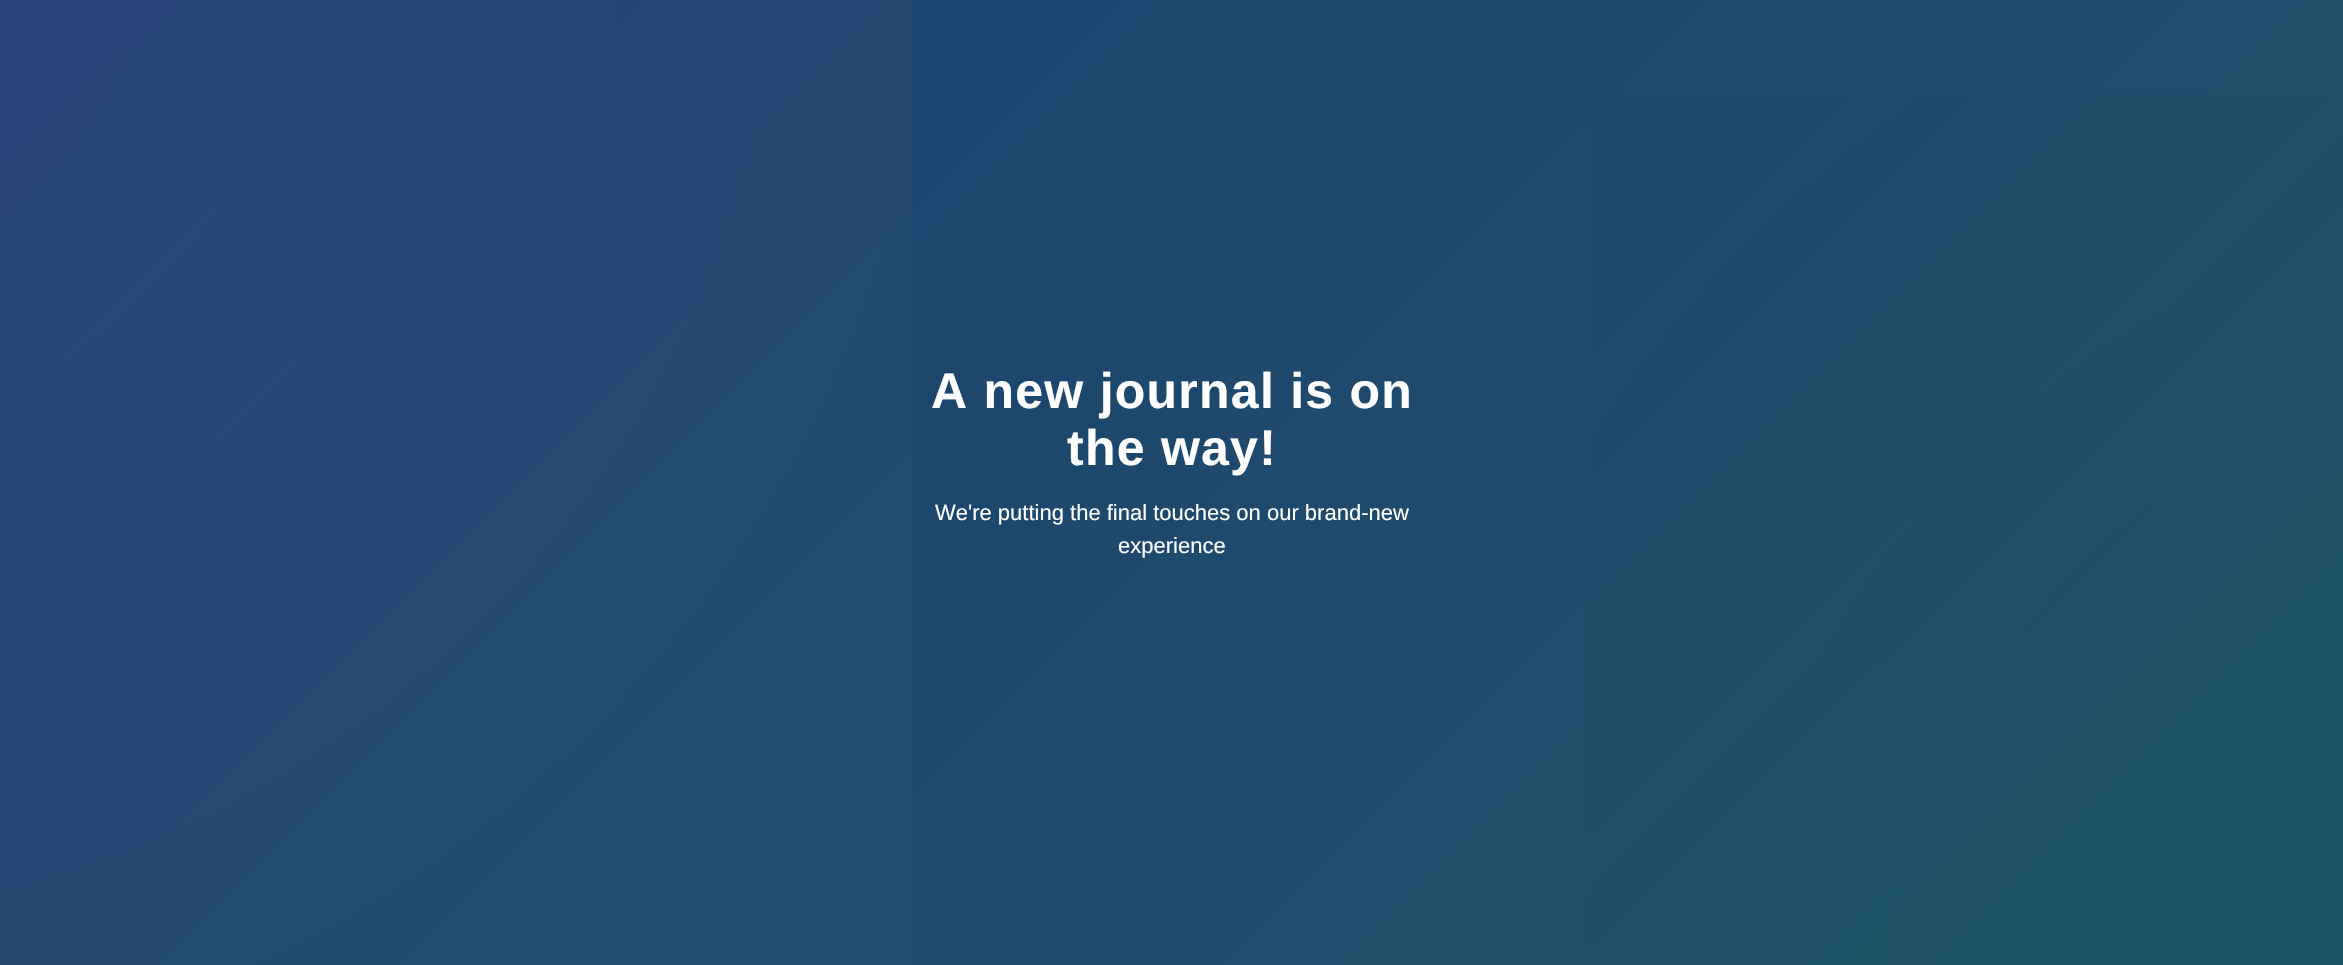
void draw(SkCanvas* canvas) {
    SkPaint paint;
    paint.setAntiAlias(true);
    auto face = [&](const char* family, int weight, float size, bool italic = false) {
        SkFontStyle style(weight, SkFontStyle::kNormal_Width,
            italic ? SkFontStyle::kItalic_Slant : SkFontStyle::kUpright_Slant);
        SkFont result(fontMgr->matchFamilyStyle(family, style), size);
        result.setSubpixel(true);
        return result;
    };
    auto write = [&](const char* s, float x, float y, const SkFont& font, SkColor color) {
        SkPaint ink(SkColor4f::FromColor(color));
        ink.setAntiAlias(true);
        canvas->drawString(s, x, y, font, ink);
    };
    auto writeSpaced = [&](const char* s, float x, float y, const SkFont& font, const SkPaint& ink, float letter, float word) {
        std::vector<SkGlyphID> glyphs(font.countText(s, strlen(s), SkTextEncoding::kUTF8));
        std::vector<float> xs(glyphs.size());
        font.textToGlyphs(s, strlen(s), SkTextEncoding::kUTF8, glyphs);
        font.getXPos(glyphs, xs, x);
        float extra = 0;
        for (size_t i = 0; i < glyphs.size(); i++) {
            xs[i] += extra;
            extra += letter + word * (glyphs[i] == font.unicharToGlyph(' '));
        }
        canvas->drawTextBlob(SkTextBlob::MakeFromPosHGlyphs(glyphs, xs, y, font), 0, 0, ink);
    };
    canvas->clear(SK_ColorWHITE);
    {
        const SkColor colors[] = {SkColorSetRGB(29, 59, 114), SkColorSetRGB(30, 87, 104)};
        const float stops[] = {0, 1};
        const SkPoint ends[] = {{345, -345}, {1999, 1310}};
        paint.setShader(SkGradientShader::MakeLinear(ends, colors, stops, 2, SkTileMode::kClamp));
        paint.setAlpha(255);
    }
    canvas->drawRect(SkRect::MakeXYWH(0, 0, 2343, 965), paint);
    {
        const SkColor colors[] = {SkColorSetARGB(13, 0, 0, 0), SkColorSetARGB(0, 0, 0, 0)};
        const float stops[] = {0, 0.5f};
        paint.setShader(SkGradientShader::MakeRadial({2579, 1062}, 4055, colors, stops, 2, SkTileMode::kClamp));
        paint.setAlpha(255);
    }
    canvas->drawRect(SkRect::MakeXYWH(1587, 94, 756, 871), paint);
    {
        const SkColor colors[] = {SkColorSetARGB(13, 255, 255, 255), SkColorSetARGB(0, 255, 255, 255)};
        const float stops[] = {0, 0.5f};
        paint.setShader(SkGradientShader::MakeRadial({-234, -96}, 4055, colors, stops, 2, SkTileMode::kClamp));
        paint.setAlpha(255);
    }
    canvas->drawRect(SkRect::MakeXYWH(0, 0, 912, 965), paint);
    auto kFont1 = face("Liberation Sans", 700, 50);
    paint.setShader(nullptr);
    paint.setColor(SK_ColorWHITE);
    writeSpaced("A new journal is on", 931, 408, kFont1, paint, 1.25f, 0);
    writeSpaced("the way!", 1067, 465, kFont1, paint, 1.25f, 0);
    auto kFont2 = face("Liberation Sans", 400, 22);
    write("We're putting the final touches on our brand-new", 935, 520, kFont2, SK_ColorWHITE);
    write("experience", 1118, 553, kFont2, SK_ColorWHITE);
}
